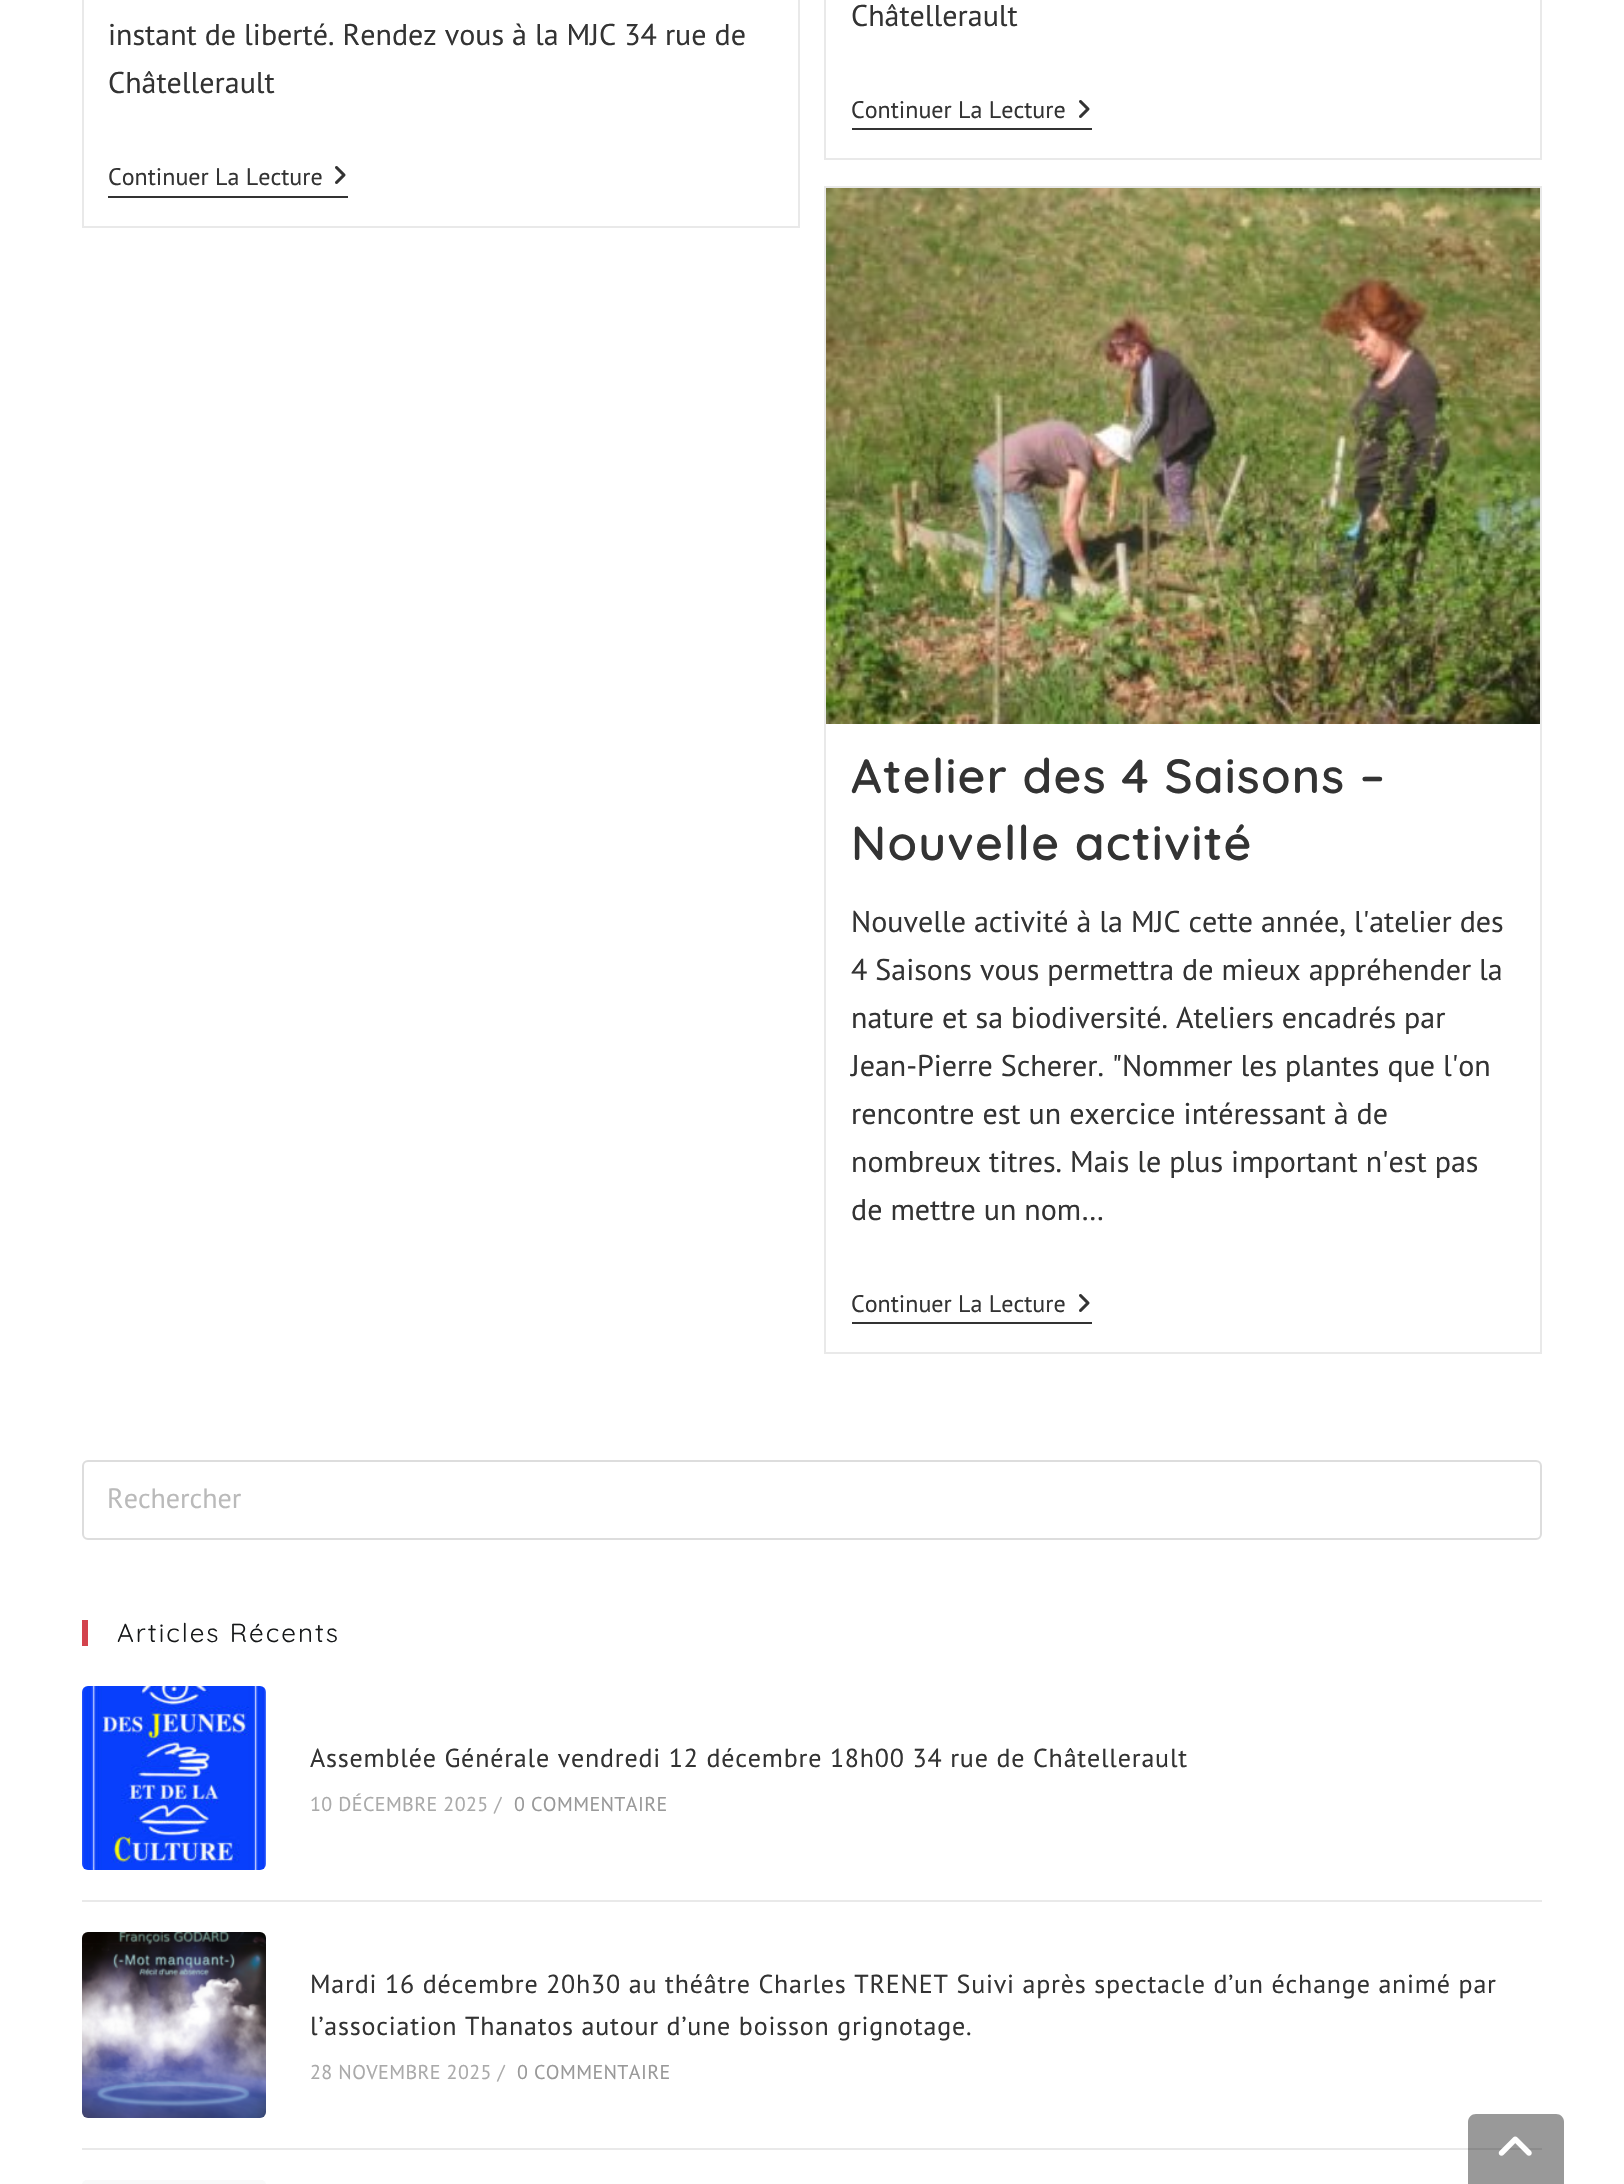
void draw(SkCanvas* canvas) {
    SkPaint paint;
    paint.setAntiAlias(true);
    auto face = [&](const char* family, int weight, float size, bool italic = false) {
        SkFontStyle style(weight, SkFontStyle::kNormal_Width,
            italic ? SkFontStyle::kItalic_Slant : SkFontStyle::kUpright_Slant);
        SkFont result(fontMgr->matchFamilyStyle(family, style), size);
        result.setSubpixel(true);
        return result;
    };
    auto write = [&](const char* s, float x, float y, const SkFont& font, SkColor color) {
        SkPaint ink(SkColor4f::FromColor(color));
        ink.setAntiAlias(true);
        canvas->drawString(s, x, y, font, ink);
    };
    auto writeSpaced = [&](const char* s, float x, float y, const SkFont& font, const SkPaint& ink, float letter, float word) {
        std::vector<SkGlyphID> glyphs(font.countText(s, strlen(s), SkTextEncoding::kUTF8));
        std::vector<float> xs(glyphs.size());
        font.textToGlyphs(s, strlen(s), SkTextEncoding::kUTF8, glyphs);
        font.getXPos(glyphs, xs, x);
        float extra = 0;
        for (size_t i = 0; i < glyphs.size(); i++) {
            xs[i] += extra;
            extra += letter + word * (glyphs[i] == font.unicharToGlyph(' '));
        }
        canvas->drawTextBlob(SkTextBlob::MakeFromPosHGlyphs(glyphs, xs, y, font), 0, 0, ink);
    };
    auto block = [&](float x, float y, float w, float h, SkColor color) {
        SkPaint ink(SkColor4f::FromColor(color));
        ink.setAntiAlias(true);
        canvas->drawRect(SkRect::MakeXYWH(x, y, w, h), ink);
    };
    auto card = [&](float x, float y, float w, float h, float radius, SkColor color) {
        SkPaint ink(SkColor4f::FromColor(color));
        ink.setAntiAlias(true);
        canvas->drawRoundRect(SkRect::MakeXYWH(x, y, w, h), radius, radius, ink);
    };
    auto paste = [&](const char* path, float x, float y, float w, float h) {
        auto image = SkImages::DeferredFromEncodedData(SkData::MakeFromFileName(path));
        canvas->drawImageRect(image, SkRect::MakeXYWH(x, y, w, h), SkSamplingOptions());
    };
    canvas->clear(SK_ColorWHITE);
    paint.setStyle(SkPaint::kStroke_Style);
    paint.setStrokeWidth(2);
    paint.setColor(SkColorSetRGB(233, 233, 233));
    canvas->drawRect(SkRect::MakeXYWH(83, -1, 716, 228), paint);
    auto kFont1 = face("PT Sans", 400, 30);
    write("instant de liberté. Rendez vous à la MJC 34 rue de", 108, 45, kFont1, SkColorSetRGB(51, 51, 51));
    write("Châtellerault", 108, 93, kFont1, SkColorSetRGB(51, 51, 51));
    block(108, 196, 240, 2, SkColorSetRGB(51, 51, 51));
    auto kFont2 = face("PT Sans", 400, 24);
    write("Continuer La Lecture", 108, 185, kFont2, SkColorSetRGB(51, 51, 51));
    paste("pic1.png", 335, 166, 11, 18);
    canvas->drawRect(SkRect::MakeXYWH(825, -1, 716, 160), paint);
    write("Châtellerault", 851, 26, kFont1, SkColorSetRGB(51, 51, 51));
    block(852, 128, 240, 2, SkColorSetRGB(51, 51, 51));
    write("Continuer La Lecture", 851, 118, kFont2, SkColorSetRGB(51, 51, 51));
    paste("pic1.png", 1079, 100, 11, 18);
    canvas->drawRect(SkRect::MakeXYWH(825, 187, 716, 1166), paint);
    paste("pic2.png", 826, 188, 714, 536);
    auto kFont3 = face("Quicksand", 600, 48);
    paint.setStyle(SkPaint::kFill_Style);
    paint.setColor(SkColorSetRGB(51, 51, 51));
    writeSpaced("Atelier des 4 Saisons –", 851, 793, kFont3, paint, 1.2f, 0);
    writeSpaced("Nouvelle activité", 851, 860, kFont3, paint, 1.2f, 0);
    write("Nouvelle activité à la MJC cette année, l'atelier des", 851, 932, kFont1, SkColorSetRGB(51, 51, 51));
    write("4 Saisons vous permettra de mieux appréhender la", 851, 980, kFont1, SkColorSetRGB(51, 51, 51));
    write("nature et sa biodiversité. Ateliers encadrés par", 851, 1028, kFont1, SkColorSetRGB(51, 51, 51));
    write("Jean-Pierre Scherer. \"Nommer les plantes que l'on", 851, 1076, kFont1, SkColorSetRGB(51, 51, 51));
    write("rencontre est un exercice intéressant à de", 851, 1124, kFont1, SkColorSetRGB(51, 51, 51));
    write("nombreux titres. Mais le plus important n'est pas", 851, 1172, kFont1, SkColorSetRGB(51, 51, 51));
    write("de mettre un nom…", 851, 1220, kFont1, SkColorSetRGB(51, 51, 51));
    block(852, 1322, 240, 2, SkColorSetRGB(51, 51, 51));
    write("Continuer La Lecture", 851, 1312, kFont2, SkColorSetRGB(51, 51, 51));
    paste("pic1.png", 1079, 1294, 11, 18);
    paint.setStyle(SkPaint::kStroke_Style);
    paint.setColor(SkColorSetRGB(221, 221, 221));
    canvas->drawRoundRect(SkRect::MakeXYWH(83, 1461, 1458, 78), 5, 5, paint);
    auto kFont4 = face("PT Sans", 400, 28);
    write("Rechercher", 107, 1508, kFont4, SkColorSetRGB(186, 186, 186));
    block(82, 1620, 6, 26, SkColorSetRGB(211, 67, 77));
    auto kFont5 = face("Quicksand", 400, 26);
    paint.setStyle(SkPaint::kFill_Style);
    paint.setColor(SkColorSetRGB(22, 24, 25));
    writeSpaced("Articles Récents", 117, 1642, kFont5, paint, 2, 0);
    paste("pic3.png", 82, 1686, 184, 184);
    auto kFont6 = face("PT Sans", 400, 26);
    paint.setColor(SkColorSetRGB(51, 51, 51));
    writeSpaced("Assemblée Générale vendredi 12 décembre 18h00 34 rue de Châtellerault", 310, 1767, kFont6, paint, 0.8f, 0);
    auto kFont7 = face("PT Sans", 400, 20);
    paint.setColor(SkColorSetRGB(170, 170, 170));
    writeSpaced("10 DÉCEMBRE 2025 /", 310, 1811, kFont7, paint, 0.4f, 0);
    paint.setColor(SkColorSetRGB(153, 153, 153));
    writeSpaced("0 COMMENTAIRE", 514, 1811, kFont7, paint, 0.4f, 0);
    block(82, 1900, 1460, 2, SkColorSetRGB(233, 233, 233));
    paste("pic4.png", 82, 1932, 184, 186);
    paint.setColor(SkColorSetRGB(51, 51, 51));
    writeSpaced("Mardi 16 décembre 20h30 au théâtre Charles TRENET Suivi après spectacle d’un échange animé par", 310, 1993, kFont6, paint, 0.8f, 0);
    writeSpaced("l’association Thanatos autour d’une boisson grignotage.", 310, 2035, kFont6, paint, 0.8f, 0);
    paint.setColor(SkColorSetRGB(170, 170, 170));
    writeSpaced("28 NOVEMBRE 2025 /", 310, 2079, kFont7, paint, 0.4f, 0);
    paint.setColor(SkColorSetRGB(153, 153, 153));
    writeSpaced("0 COMMENTAIRE", 517, 2079, kFont7, paint, 0.4f, 0);
    block(82, 2148, 1460, 2, SkColorSetRGB(233, 233, 233));
    paste("pic5.png", 83, 2180, 182, 3);
    card(82, 2180, 184, 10, 6, SkColorSetRGB(249, 249, 249));
    paint.setColor(SkColorSetARGB(102, 0, 0, 0));
    canvas->drawPath(SkPathBuilder().moveTo(1476, 2114).lineTo(1556, 2114).cubicTo(1560.5f, 2114, 1564, 2117.5f, 1564, 2122).lineTo(1564, 2184).lineTo(1468, 2184).lineTo(1468, 2122).cubicTo(1468, 2117.5f, 1471.5f, 2114, 1476, 2114).close().detach(), paint);
    paste("pic6.png", 1498, 2136, 34, 20);
}
